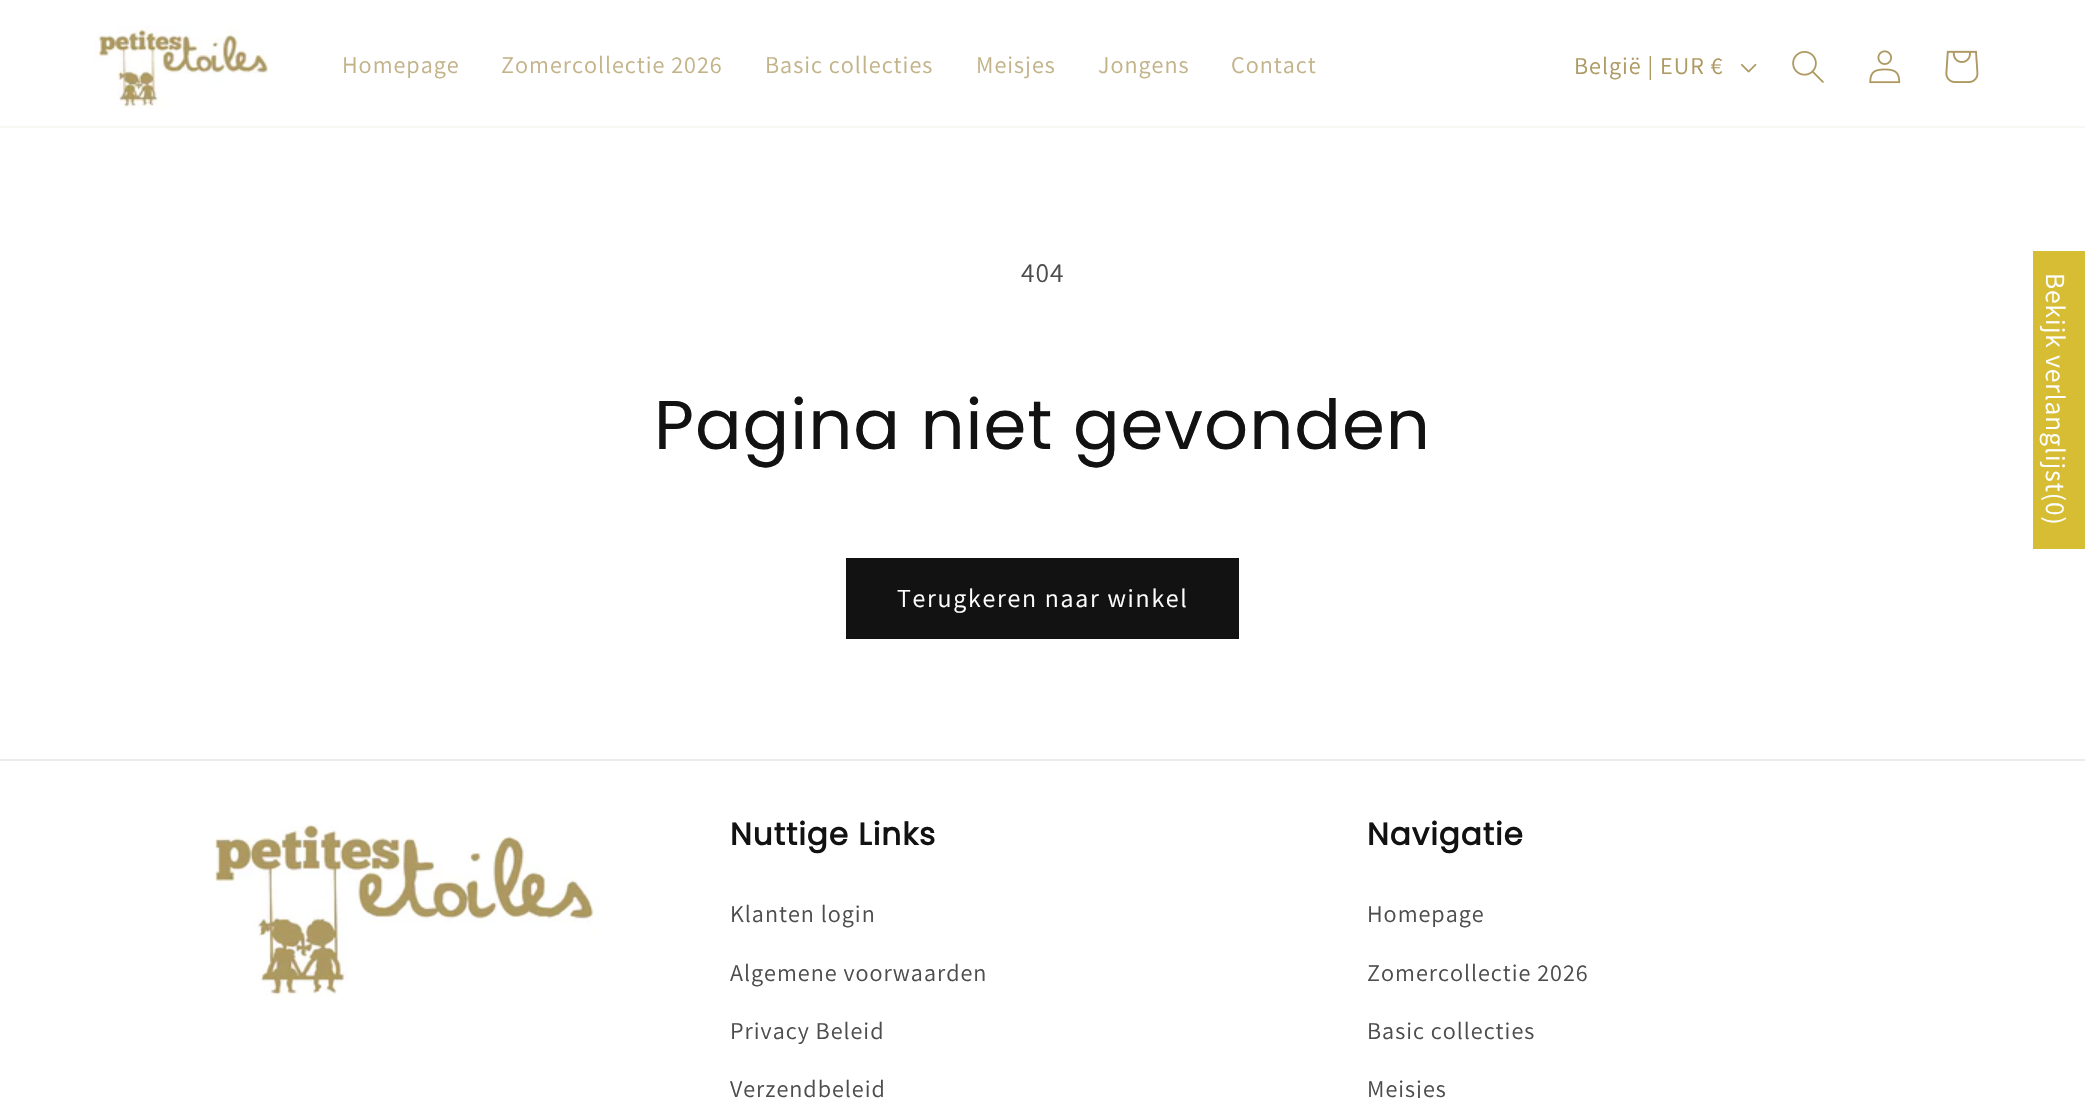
void draw(SkCanvas* canvas) {
    SkPaint paint;
    paint.setAntiAlias(true);
    auto face = [&](const char* family, int weight, float size, bool italic = false) {
        SkFontStyle style(weight, SkFontStyle::kNormal_Width,
            italic ? SkFontStyle::kItalic_Slant : SkFontStyle::kUpright_Slant);
        SkFont result(fontMgr->matchFamilyStyle(family, style), size);
        result.setSubpixel(true);
        return result;
    };
    auto writeSpaced = [&](const char* s, float x, float y, const SkFont& font, const SkPaint& ink, float letter, float word) {
        std::vector<SkGlyphID> glyphs(font.countText(s, strlen(s), SkTextEncoding::kUTF8));
        std::vector<float> xs(glyphs.size());
        font.textToGlyphs(s, strlen(s), SkTextEncoding::kUTF8, glyphs);
        font.getXPos(glyphs, xs, x);
        float extra = 0;
        for (size_t i = 0; i < glyphs.size(); i++) {
            xs[i] += extra;
            extra += letter + word * (glyphs[i] == font.unicharToGlyph(' '));
        }
        canvas->drawTextBlob(SkTextBlob::MakeFromPosHGlyphs(glyphs, xs, y, font), 0, 0, ink);
    };
    auto block = [&](float x, float y, float w, float h, SkColor color) {
        SkPaint ink(SkColor4f::FromColor(color));
        ink.setAntiAlias(true);
        canvas->drawRect(SkRect::MakeXYWH(x, y, w, h), ink);
    };
    auto paste = [&](const char* path, float x, float y, float w, float h) {
        auto image = SkImages::DeferredFromEncodedData(SkData::MakeFromFileName(path));
        canvas->drawImageRect(image, SkRect::MakeXYWH(x, y, w, h), SkSamplingOptions());
    };
    canvas->clear(SK_ColorWHITE);
    block(0, 126, 2085, 2, SkColorSetRGB(248, 247, 242));
    paste("pic1.png", 95, 26, 174, 82);
    auto kFont1 = face("Assistant", 400, 24.1f);
    paint.setColor(SkColorSetRGB(194, 179, 137));
    writeSpaced("Homepage", 342, 73, kFont1, paint, 1, 0);
    writeSpaced("Zomercollectie 2026", 501, 73, kFont1, paint, 1, 0);
    writeSpaced("Basic collecties", 765, 73, kFont1, paint, 1, 0);
    writeSpaced("Meisjes", 976, 73, kFont1, paint, 1, 0);
    writeSpaced("Jongens", 1098, 73, kFont1, paint, 1, 0);
    writeSpaced("Contact", 1231, 73, kFont1, paint, 1, 0);
    paint.setColor(SkColorSetRGB(173, 153, 97));
    writeSpaced("België | EUR €", 1574, 74, kFont1, paint, 1, 0);
    paste("pic2.png", 1740, 63, 17, 10);
    paste("pic3.png", 1792, 51, 32, 32);
    paste("pic4.png", 1869, 50, 32, 34);
    paste("pic5.png", 1945, 50, 34, 33);
    auto kFont2 = face("Assistant", 400, 27.5f);
    paint.setColor(SkColorSetRGB(77, 77, 77));
    writeSpaced("404", 1021, 282, kFont2, paint, 1, 0);
    auto kFont3 = face("Poppins", 400, 69);
    paint.setColor(SkColorSetRGB(18, 18, 18));
    writeSpaced("Pagina niet gevonden", 654, 449, kFont3, paint, 1, 0);
    block(846, 558, 393, 81, SkColorSetRGB(18, 18, 18));
    auto kFont4 = face("Assistant", 400, 25.9f);
    paint.setColor(SK_ColorWHITE);
    writeSpaced("Terugkeren naar winkel", 897, 607, kFont4, paint, 1.75f, 0);
    block(2033, 251, 52, 298, SkColorSetRGB(214, 189, 52));
    canvas->save();
    canvas->rotate(90, 2046, 273);
    writeSpaced("Bekijk verlanglijst(0)", 2046, 273, kFont2, paint, 1, 0);
    canvas->restore();
    block(0, 759, 2085, 2, SkColorSetRGB(236, 236, 236));
    paste("pic6.png", 214, 824, 386, 172);
    auto kFont5 = face("Poppins", 700, 31);
    paint.setColor(SkColorSetRGB(18, 18, 18));
    writeSpaced("Nuttige Links", 730, 845, kFont5, paint, 1, 0);
    paint.setColor(SkColorSetRGB(77, 77, 77));
    writeSpaced("Klanten login", 730, 922, kFont1, paint, 1, 0);
    writeSpaced("Algemene voorwaarden", 730, 981, kFont1, paint, 1, 0);
    writeSpaced("Privacy Beleid", 730, 1039, kFont1, paint, 1, 0);
    writeSpaced("Verzendbeleid", 730, 1097, kFont1, paint, 1, 0);
    paint.setColor(SkColorSetRGB(18, 18, 18));
    writeSpaced("Navigatie", 1367, 845, kFont5, paint, 1, 0);
    paint.setColor(SkColorSetRGB(77, 77, 77));
    writeSpaced("Homepage", 1367, 922, kFont1, paint, 1, 0);
    writeSpaced("Zomercollectie 2026", 1367, 981, kFont1, paint, 1, 0);
    writeSpaced("Basic collecties", 1367, 1039, kFont1, paint, 1, 0);
    writeSpaced("Meisjes", 1367, 1097, kFont1, paint, 1, 0);
}
